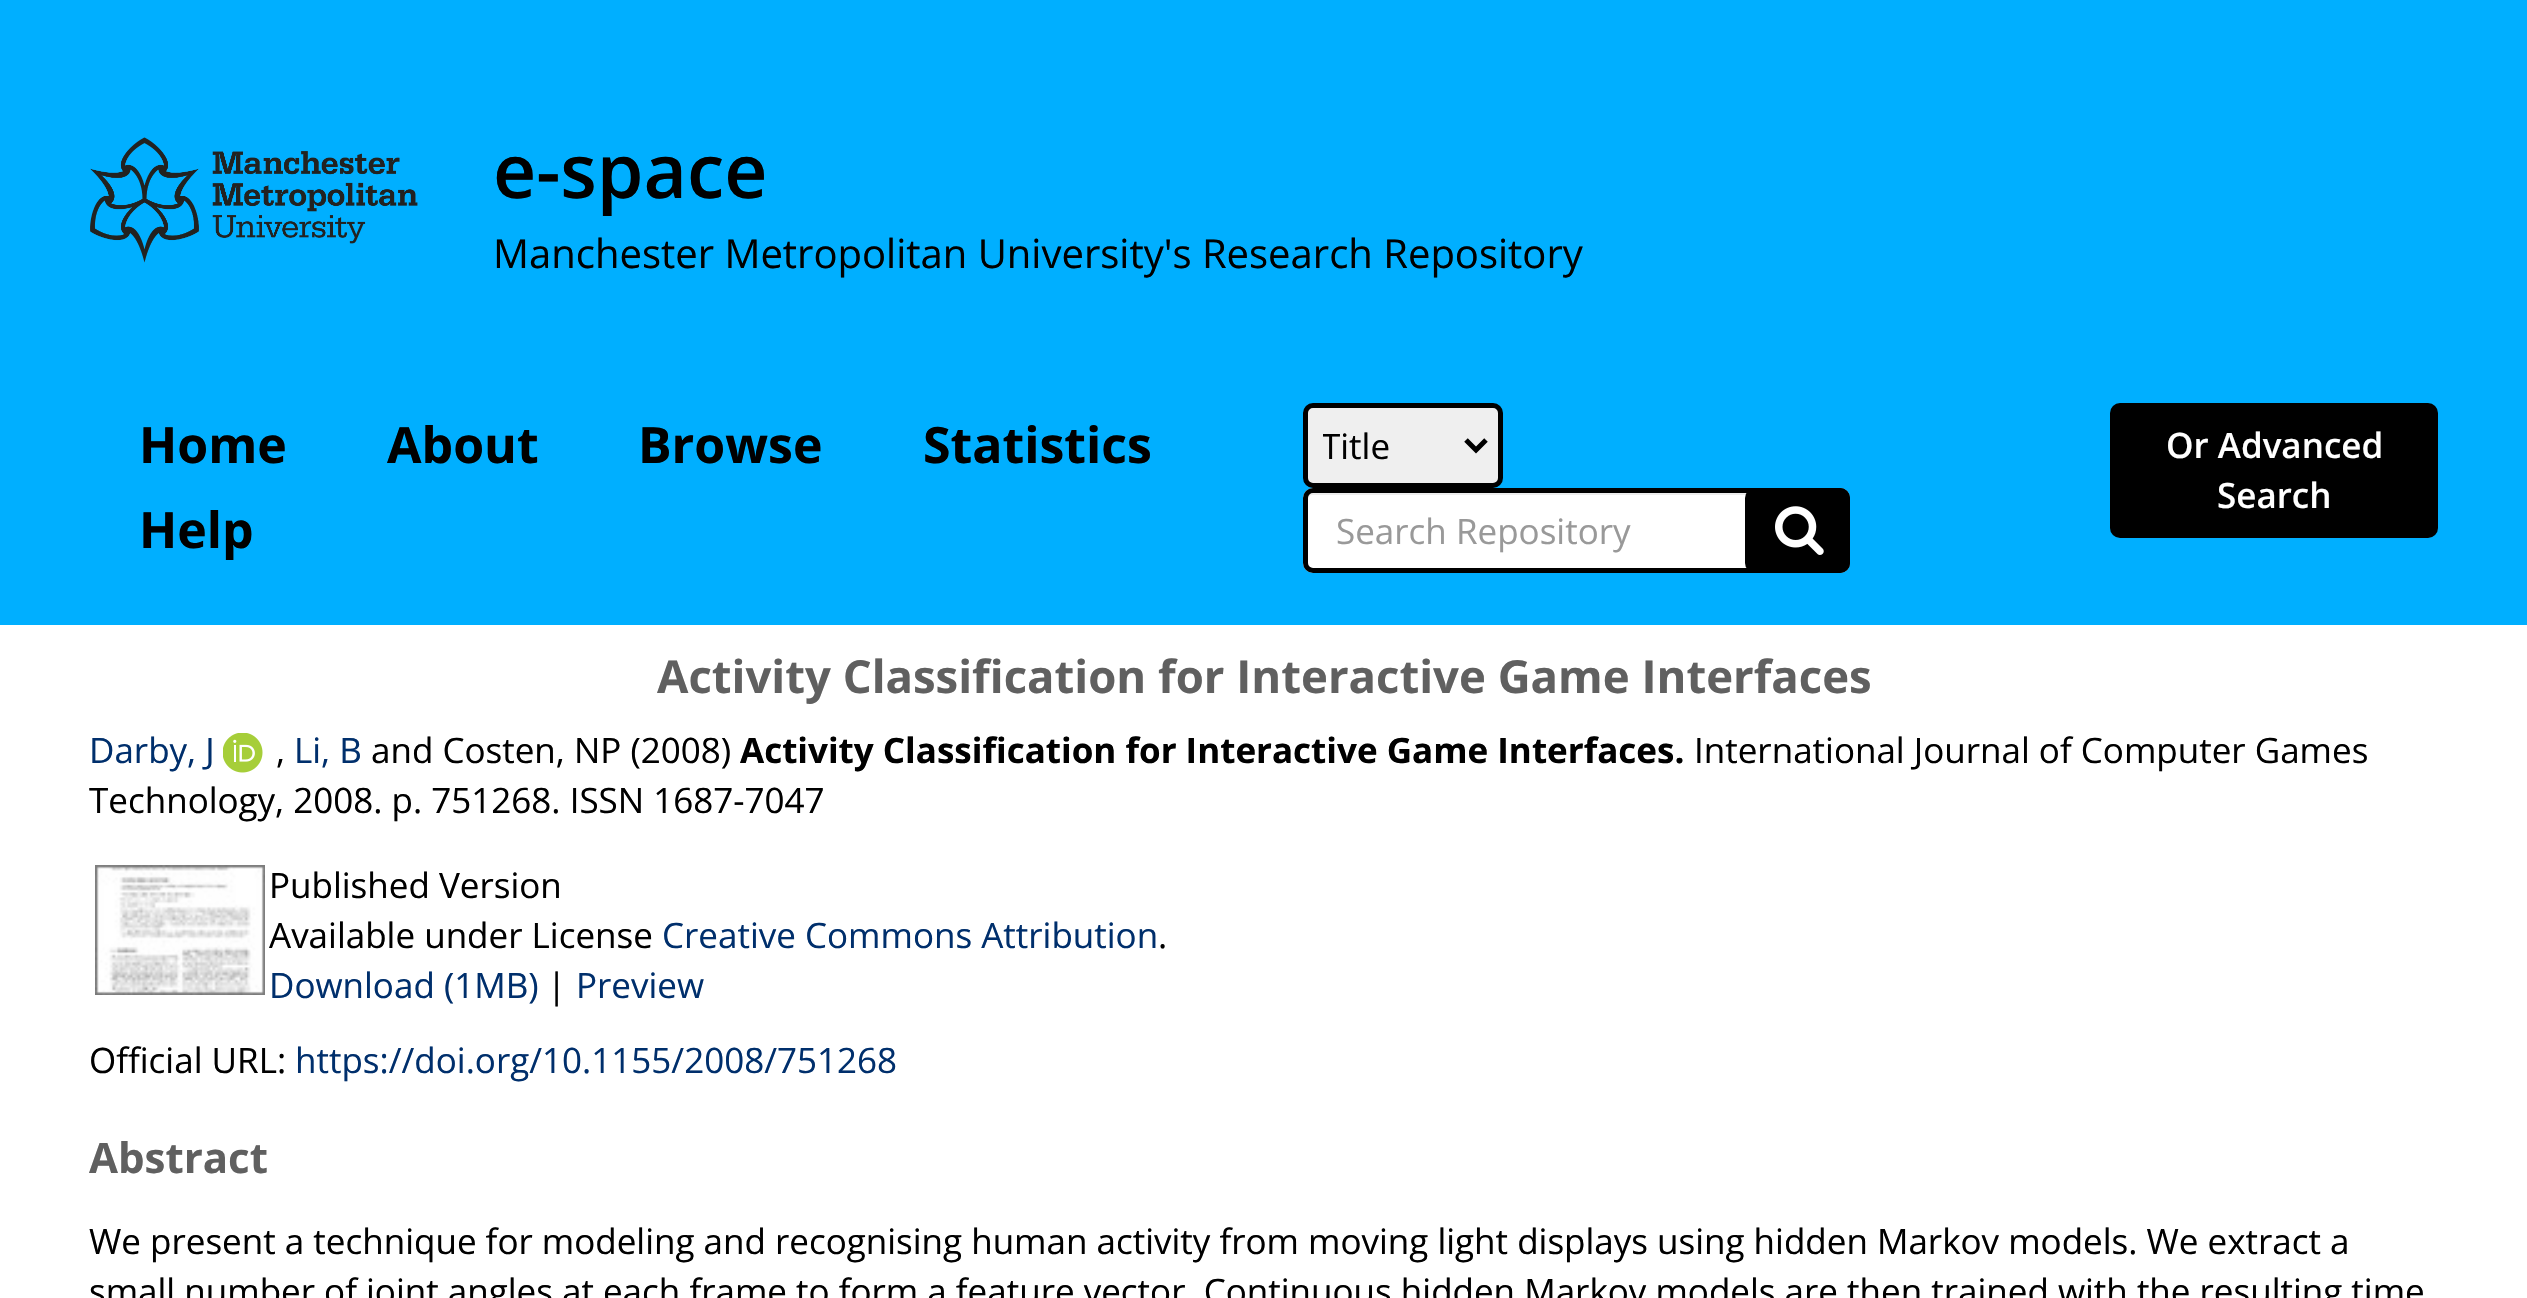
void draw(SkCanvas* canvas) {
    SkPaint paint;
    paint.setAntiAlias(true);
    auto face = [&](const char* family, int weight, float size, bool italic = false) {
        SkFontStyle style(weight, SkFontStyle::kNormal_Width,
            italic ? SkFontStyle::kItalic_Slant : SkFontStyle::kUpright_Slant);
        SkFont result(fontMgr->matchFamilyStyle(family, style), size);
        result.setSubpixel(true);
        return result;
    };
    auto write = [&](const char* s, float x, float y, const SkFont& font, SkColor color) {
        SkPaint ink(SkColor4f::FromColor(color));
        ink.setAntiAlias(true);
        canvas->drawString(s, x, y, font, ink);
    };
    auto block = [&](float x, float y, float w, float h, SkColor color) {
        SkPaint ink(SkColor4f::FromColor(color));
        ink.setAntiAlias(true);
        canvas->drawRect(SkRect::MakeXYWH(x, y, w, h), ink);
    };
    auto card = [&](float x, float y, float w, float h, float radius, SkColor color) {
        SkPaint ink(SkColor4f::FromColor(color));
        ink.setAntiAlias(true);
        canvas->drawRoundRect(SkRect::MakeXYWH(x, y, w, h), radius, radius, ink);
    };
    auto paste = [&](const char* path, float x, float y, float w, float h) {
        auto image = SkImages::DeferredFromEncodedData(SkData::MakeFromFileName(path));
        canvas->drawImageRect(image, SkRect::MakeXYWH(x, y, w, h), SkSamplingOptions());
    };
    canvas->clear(SK_ColorWHITE);
    block(0, 0, 2527, 625, SkColorSetRGB(0, 175, 255));
    paste("pic1.png", 90, 137, 328, 126);
    auto kFont1 = face("Open Sans", 600, 75);
    write("e-space", 493, 198, kFont1, SK_ColorBLACK);
    auto kFont2 = face("Open Sans", 400, 40);
    write("Manchester Metropolitan University's Research Repository", 493, 268, kFont2, SK_ColorBLACK);
    auto kFont3 = face("Open Sans", 700, 50);
    write("Home", 139, 463, kFont3, SK_ColorBLACK);
    write("About", 387, 463, kFont3, SK_ColorBLACK);
    write("Browse", 638, 463, kFont3, SK_ColorBLACK);
    write("Statistics", 923, 463, kFont3, SK_ColorBLACK);
    write("Help", 139, 548, kFont3, SK_ColorBLACK);
    paint.setColor(SkColorSetRGB(239, 239, 239));
    canvas->drawRoundRect(SkRect::MakeXYWH(1305.5f, 405.5f, 195, 80), 7.5f, 7.5f, paint);
    paint.setStyle(SkPaint::kStroke_Style);
    paint.setStrokeWidth(5);
    paint.setColor(SK_ColorBLACK);
    canvas->drawRoundRect(SkRect::MakeXYWH(1305.5f, 405.5f, 195, 80), 7.5f, 7.5f, paint);
    canvas->drawPath(SkPathBuilder().moveTo(1466, 440).lineTo(1476, 450).lineTo(1486, 440).detach(), paint);
    canvas->save();
    canvas->clipRect(SkRect::MakeXYWH(1323, 420, 130, 53));
    auto kFont4 = face("Open Sans", 400, 35);
    write("Title", 1321, 459, kFont4, SK_ColorBLACK);
    canvas->restore();
    card(1303, 488, 547, 85, 10, SK_ColorWHITE);
    paint.setStyle(SkPaint::kFill_Style);
    paint.setColor(SkColorSetRGB(236, 236, 236));
    canvas->drawPath(SkPathBuilder().moveTo(1312, 495).lineTo(1840, 495).cubicTo(1843, 495, 1845, 497, 1845, 500).cubicTo(1845, 497, 1844, 493, 1840, 493).lineTo(1313, 493).cubicTo(1309, 493, 1308, 497, 1308, 500).cubicTo(1308, 497, 1310, 495, 1312, 495).close().detach(), paint);
    paint.setStyle(SkPaint::kStroke_Style);
    paint.setColor(SK_ColorBLACK);
    canvas->drawRoundRect(SkRect::MakeXYWH(1305.5f, 490.5f, 542, 80), 7.5f, 7.5f, paint);
    write("Search Repository", 1336, 544, kFont4, SkColorSetRGB(153, 153, 153));
    card(1745, 488, 105, 85, 10, SK_ColorBLACK);
    paste("pic2.png", 1775, 506, 49, 49);
    card(2110, 403, 328, 135, 10, SK_ColorBLACK);
    auto kFont5 = face("Open Sans", 600, 35);
    write("Or Advanced", 2166, 458, kFont5, SK_ColorWHITE);
    write("Search", 2217, 508, kFont5, SK_ColorWHITE);
    auto kFont6 = face("Open Sans", 700, 45.5f);
    write("Activity Classification for Interactive Game Interfaces", 657, 693, kFont6, SkColorSetRGB(96, 96, 96));
    write("Darby, J", 89, 763, kFont4, SkColorSetRGB(0, 47, 108));
    paste("pic3.png", 223, 733, 40, 40);
    write(",", 276, 763, kFont4, SK_ColorBLACK);
    write("Li, B", 294, 763, kFont4, SkColorSetRGB(0, 47, 108));
    write("and Costen, NP (2008)", 371, 763, kFont4, SK_ColorBLACK);
    auto kFont7 = face("Open Sans", 700, 35);
    write("Activity Classification for Interactive Game Interfaces.", 740, 763, kFont7, SK_ColorBLACK);
    write("International Journal of Computer Games", 1694, 763, kFont4, SK_ColorBLACK);
    write("Technology, 2008. p. 751268. ISSN 1687-7047", 89, 813, kFont4, SK_ColorBLACK);
    paste("pic4.png", 95, 865, 170, 130);
    write("Published Version", 269, 898, kFont4, SK_ColorBLACK);
    write("Available under License", 269, 948, kFont4, SK_ColorBLACK);
    write("Creative Commons Attribution", 662, 948, kFont4, SkColorSetRGB(0, 47, 108));
    write(".", 1158, 948, kFont4, SK_ColorBLACK);
    write("Download (1MB)", 269, 998, kFont4, SkColorSetRGB(0, 47, 108));
    write("|", 547, 998, kFont4, SK_ColorBLACK);
    write("Preview", 576, 998, kFont4, SkColorSetRGB(0, 47, 108));
    write("Official URL:", 89, 1073, kFont4, SK_ColorBLACK);
    write("https://doi.org/10.1155/2008/751268", 295, 1073, kFont4, SkColorSetRGB(0, 47, 108));
    auto kFont8 = face("Open Sans", 700, 42);
    write("Abstract", 89, 1173, kFont8, SkColorSetRGB(96, 96, 96));
    write("We present a technique for modeling and recognising human activity from moving light displays using hidden Markov models. We extract a", 89, 1254, kFont4, SK_ColorBLACK);
    write("small number of joint angles at each frame to form a feature vector. Continuous hidden Markov models are then trained with the resulting time", 89, 1304, kFont4, SK_ColorBLACK);
}
